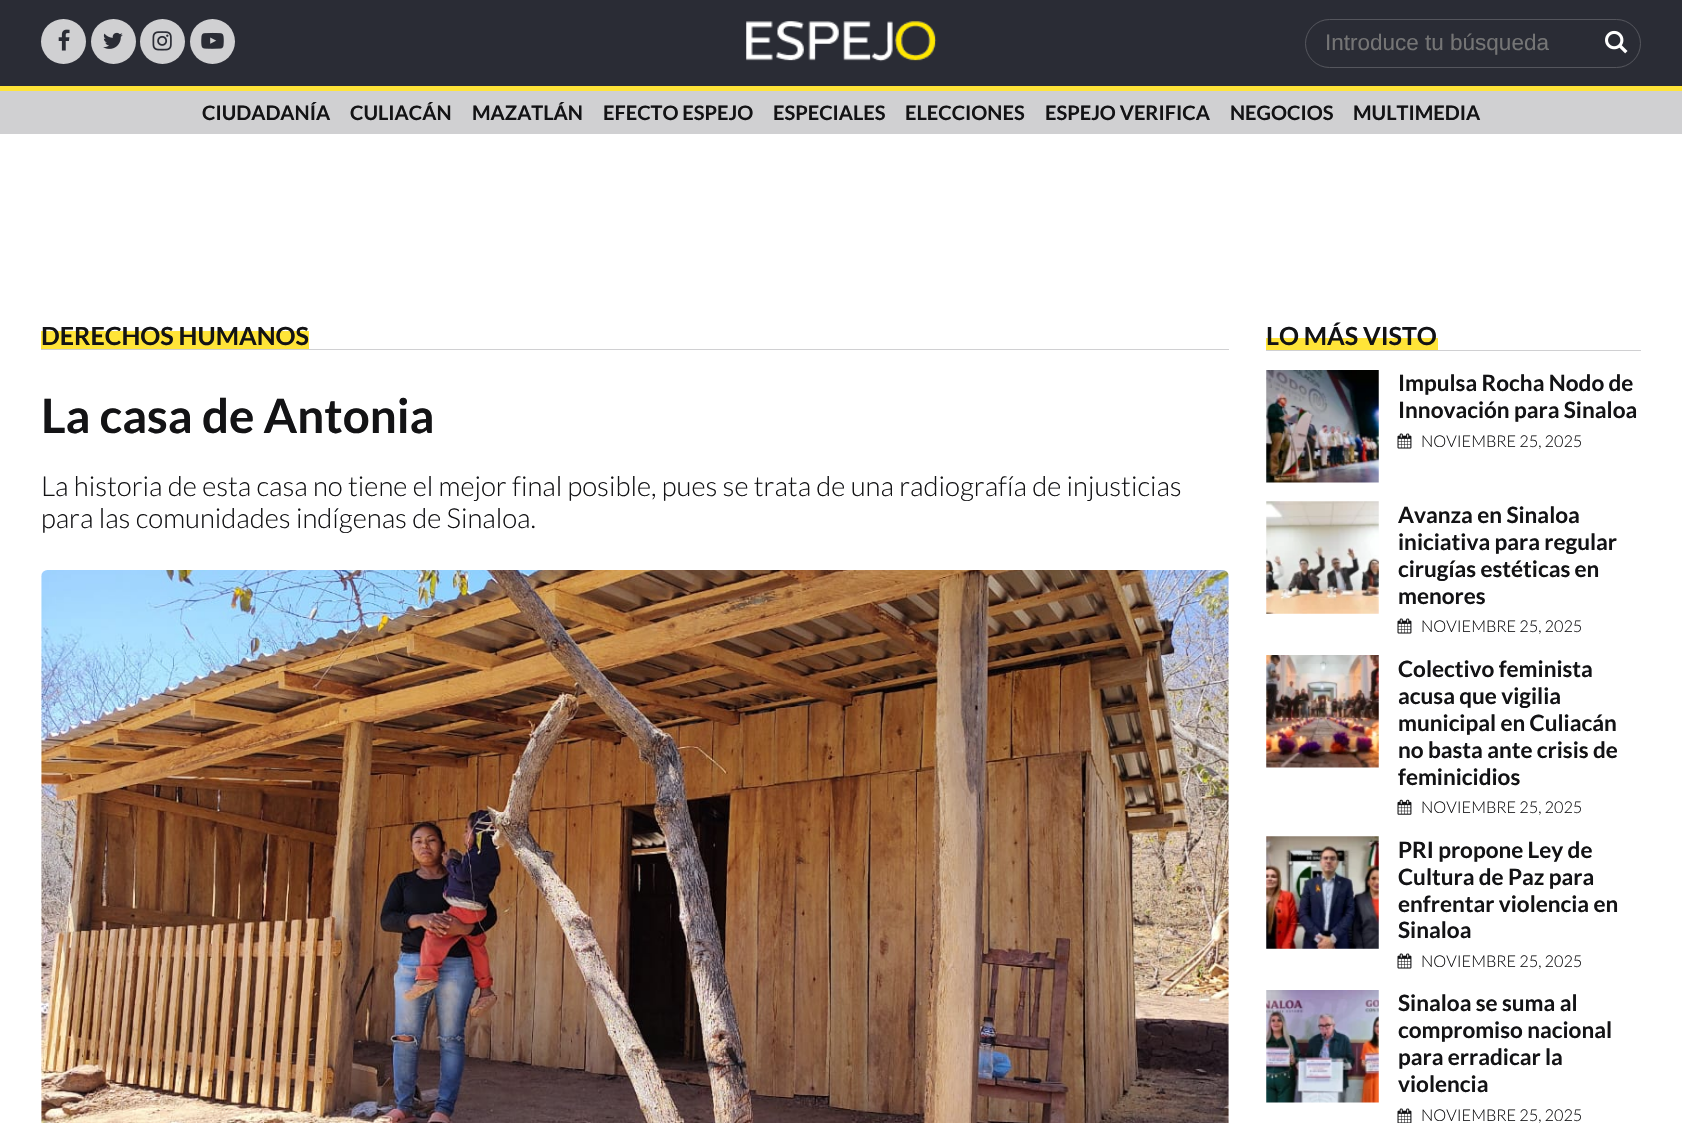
void draw(SkCanvas* canvas) {
    SkPaint paint;
    paint.setAntiAlias(true);
    auto face = [&](const char* family, int weight, float size, bool italic = false) {
        SkFontStyle style(weight, SkFontStyle::kNormal_Width,
            italic ? SkFontStyle::kItalic_Slant : SkFontStyle::kUpright_Slant);
        SkFont result(fontMgr->matchFamilyStyle(family, style), size);
        result.setSubpixel(true);
        return result;
    };
    auto write = [&](const char* s, float x, float y, const SkFont& font, SkColor color) {
        SkPaint ink(SkColor4f::FromColor(color));
        ink.setAntiAlias(true);
        canvas->drawString(s, x, y, font, ink);
    };
    auto block = [&](float x, float y, float w, float h, SkColor color) {
        SkPaint ink(SkColor4f::FromColor(color));
        ink.setAntiAlias(true);
        canvas->drawRect(SkRect::MakeXYWH(x, y, w, h), ink);
    };
    auto paste = [&](const char* path, float x, float y, float w, float h) {
        auto image = SkImages::DeferredFromEncodedData(SkData::MakeFromFileName(path));
        canvas->drawImageRect(image, SkRect::MakeXYWH(x, y, w, h), SkSamplingOptions());
    };
    canvas->clear(SK_ColorWHITE);
    block(0, 0, 1682, 86, SkColorSetRGB(42, 44, 53));
    paint.setColor(SkColorSetRGB(208, 208, 210));
    canvas->drawCircle(63.5f, 41.5f, 22.5f, paint);
    paste("pic1.png", 58, 29, 12, 22);
    canvas->drawCircle(113.5f, 41.5f, 22.5f, paint);
    paste("pic2.png", 103, 32, 20, 17);
    canvas->drawCircle(162.5f, 41.5f, 22.5f, paint);
    paste("pic3.png", 152, 31, 20, 20);
    canvas->drawCircle(212.5f, 41.5f, 22.5f, paint);
    paste("pic4.png", 201, 32, 23, 17);
    paste("pic5.png", 746, 21, 191, 41);
    paint.setStyle(SkPaint::kStroke_Style);
    paint.setStrokeWidth(1);
    paint.setColor(SkColorSetRGB(85, 86, 93));
    canvas->drawRoundRect(SkRect::MakeXYWH(1305.5f, 19.5f, 335, 48), 24, 24, paint);
    auto kFont1 = face("Liberation Sans", 400, 22.5f);
    write("Introduce tu búsqueda", 1325, 50, kFont1, SkColorSetRGB(117, 117, 117));
    paste("pic6.png", 1605, 30, 23, 24);
    block(0, 91, 1682, 43, SkColorSetRGB(208, 208, 210));
    block(0, 86, 1682, 5, SkColorSetRGB(255, 228, 56));
    auto kFont2 = face("Lato", 700, 20);
    write("CIUDADANÍA", 202, 120, kFont2, SkColorSetRGB(19, 19, 21));
    write("CULIACÁN", 350, 120, kFont2, SkColorSetRGB(19, 19, 21));
    write("MAZATLÁN", 472, 120, kFont2, SkColorSetRGB(19, 19, 21));
    write("EFECTO ESPEJO", 603, 120, kFont2, SkColorSetRGB(19, 19, 21));
    write("ESPECIALES", 773, 120, kFont2, SkColorSetRGB(19, 19, 21));
    write("ELECCIONES", 905, 120, kFont2, SkColorSetRGB(19, 19, 21));
    write("ESPEJO VERIFICA", 1045, 120, kFont2, SkColorSetRGB(19, 19, 21));
    write("NEGOCIOS", 1230, 120, kFont2, SkColorSetRGB(19, 19, 21));
    write("MULTIMEDIA", 1353, 120, kFont2, SkColorSetRGB(19, 19, 21));
    block(41, 331, 268, 18, SkColorSetRGB(255, 228, 56));
    auto kFont3 = face("Lato", 700, 25);
    write("DERECHOS HUMANOS", 41, 345, kFont3, SkColorSetRGB(19, 19, 21));
    block(41, 349, 1188, 1, SkColorSetRGB(208, 208, 210));
    auto kFont4 = face("Lato", 700, 47.5f);
    write("La casa de Antonia", 41, 433, kFont4, SkColorSetRGB(19, 19, 21));
    auto kFont5 = face("Lato", 300, 27.5f);
    write("La historia de esta casa no tiene el mejor final posible, pues se trata de una radiografía de injusticias", 41, 496, kFont5, SkColorSetRGB(19, 19, 21));
    write("para las comunidades indígenas de Sinaloa.", 41, 528, kFont5, SkColorSetRGB(19, 19, 21));
    paste("pic7.png", 41, 570, 1188, 553);
    block(1266, 350, 375, 1, SkColorSetRGB(208, 208, 210));
    block(1266, 338, 172, 12, SkColorSetRGB(255, 228, 56));
    write("LO MÁS VISTO", 1266, 345, kFont3, SkColorSetRGB(19, 19, 21));
    paste("pic8.png", 1266, 370, 113, 113);
    auto kFont6 = face("Lato", 700, 22.5f);
    write("Impulsa Rocha Nodo de", 1398, 391, kFont6, SkColorSetRGB(19, 19, 21));
    write("Innovación para Sinaloa", 1398, 418, kFont6, SkColorSetRGB(19, 19, 21));
    paste("pic9.png", 1397, 433, 15, 16);
    auto kFont7 = face("Lato", 300, 16.25f);
    write("NOVIEMBRE 25, 2025", 1421, 447, kFont7, SkColorSetRGB(19, 19, 21));
    paste("pic10.png", 1266, 501, 113, 113);
    write("Avanza en Sinaloa", 1398, 523, kFont6, SkColorSetRGB(19, 19, 21));
    write("iniciativa para regular", 1398, 550, kFont6, SkColorSetRGB(19, 19, 21));
    write("cirugías estéticas en", 1398, 577, kFont6, SkColorSetRGB(19, 19, 21));
    write("menores", 1398, 604, kFont6, SkColorSetRGB(19, 19, 21));
    paste("pic9.png", 1397, 618, 15, 16);
    write("NOVIEMBRE 25, 2025", 1421, 632, kFont7, SkColorSetRGB(19, 19, 21));
    paste("pic11.png", 1266, 655, 113, 113);
    write("Colectivo feminista", 1398, 677, kFont6, SkColorSetRGB(19, 19, 21));
    write("acusa que vigilia", 1398, 704, kFont6, SkColorSetRGB(19, 19, 21));
    write("municipal en Culiacán", 1398, 731, kFont6, SkColorSetRGB(19, 19, 21));
    write("no basta ante crisis de", 1398, 758, kFont6, SkColorSetRGB(19, 19, 21));
    write("feminicidios", 1398, 785, kFont6, SkColorSetRGB(19, 19, 21));
    paste("pic12.png", 1397, 799, 15, 16);
    write("NOVIEMBRE 25, 2025", 1421, 813, kFont7, SkColorSetRGB(19, 19, 21));
    paste("pic13.png", 1266, 836, 113, 113);
    write("PRI propone Ley de", 1398, 858, kFont6, SkColorSetRGB(19, 19, 21));
    write("Cultura de Paz para", 1398, 885, kFont6, SkColorSetRGB(19, 19, 21));
    write("enfrentar violencia en", 1398, 912, kFont6, SkColorSetRGB(19, 19, 21));
    write("Sinaloa", 1398, 938, kFont6, SkColorSetRGB(19, 19, 21));
    paste("pic9.png", 1397, 953, 15, 16);
    write("NOVIEMBRE 25, 2025", 1421, 967, kFont7, SkColorSetRGB(19, 19, 21));
    paste("pic14.png", 1266, 990, 113, 113);
    write("Sinaloa se suma al", 1398, 1011, kFont6, SkColorSetRGB(19, 19, 21));
    write("compromiso nacional", 1398, 1038, kFont6, SkColorSetRGB(19, 19, 21));
    write("para erradicar la", 1398, 1065, kFont6, SkColorSetRGB(19, 19, 21));
    write("violencia", 1398, 1092, kFont6, SkColorSetRGB(19, 19, 21));
    paste("pic15.png", 1397, 1108, 15, 15);
    write("NOVIEMBRE 25, 2025", 1421, 1121, kFont7, SkColorSetRGB(19, 19, 21));
}
